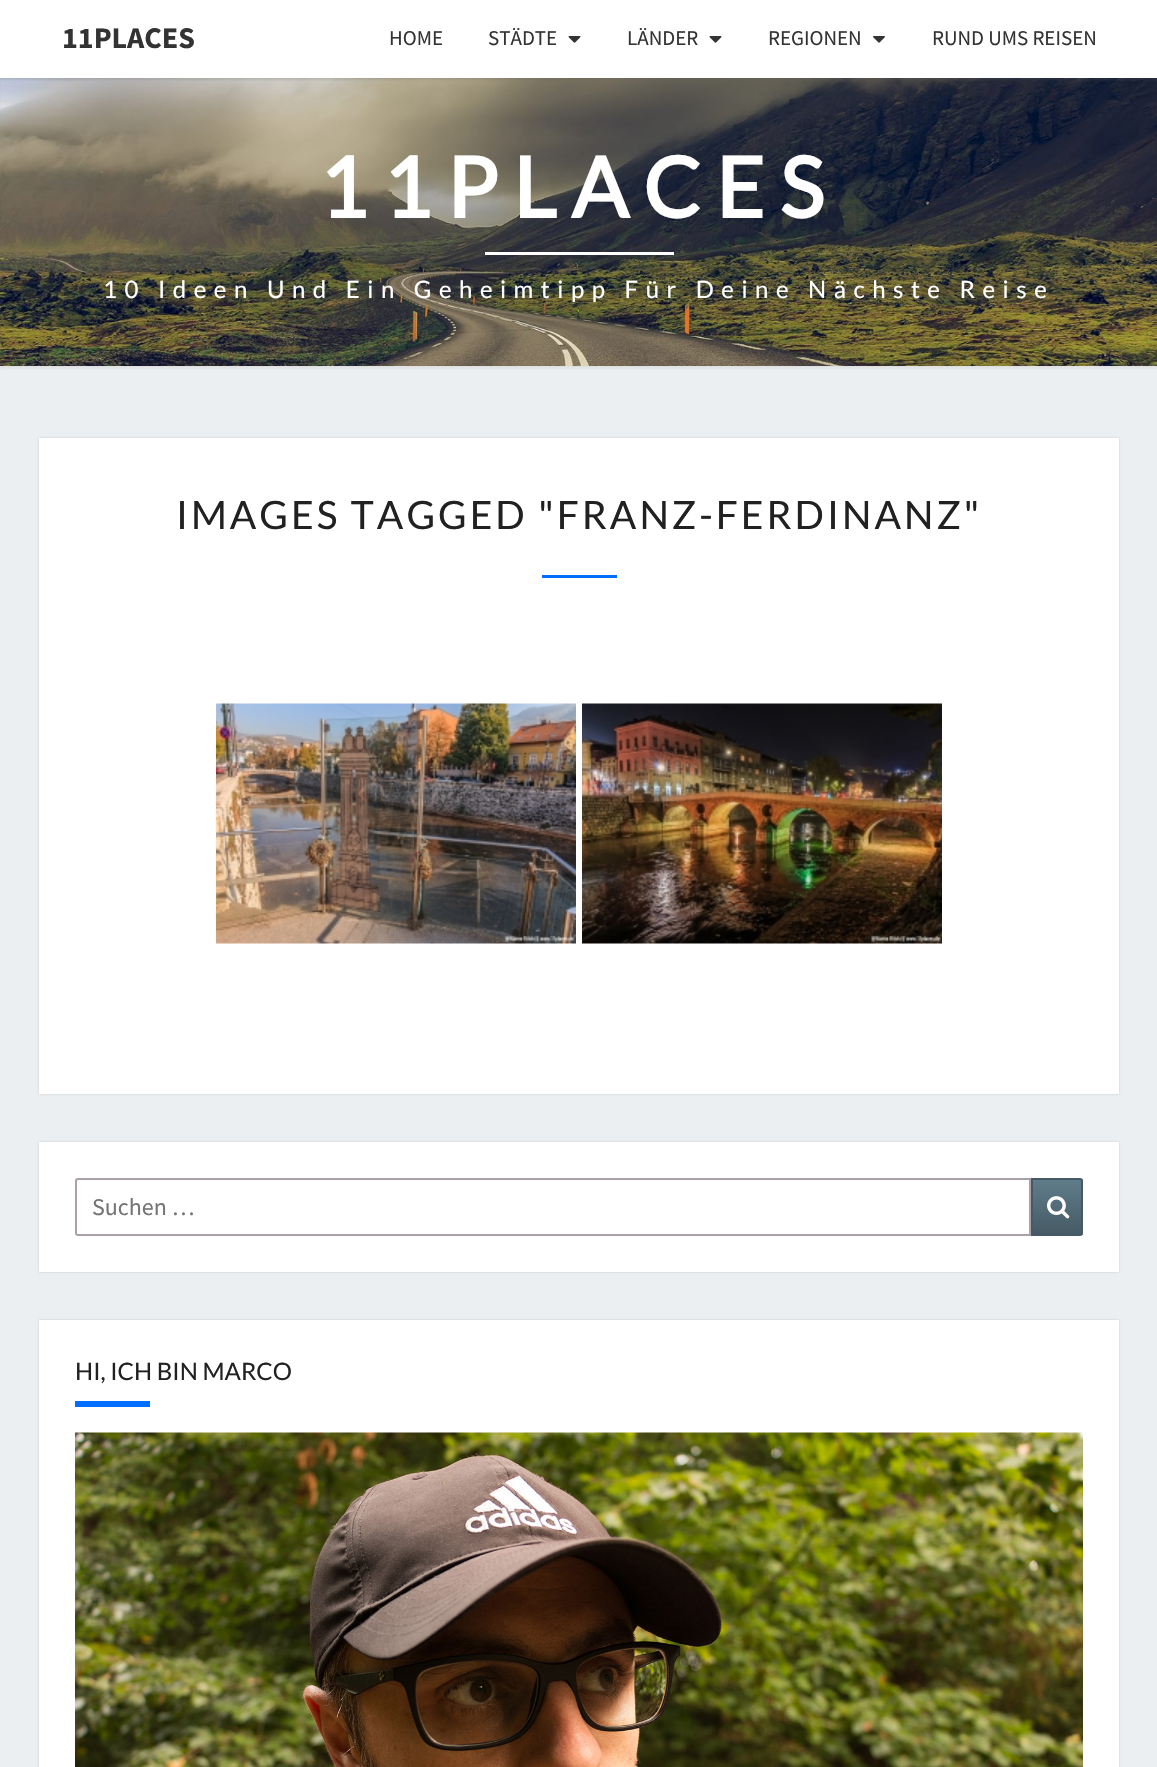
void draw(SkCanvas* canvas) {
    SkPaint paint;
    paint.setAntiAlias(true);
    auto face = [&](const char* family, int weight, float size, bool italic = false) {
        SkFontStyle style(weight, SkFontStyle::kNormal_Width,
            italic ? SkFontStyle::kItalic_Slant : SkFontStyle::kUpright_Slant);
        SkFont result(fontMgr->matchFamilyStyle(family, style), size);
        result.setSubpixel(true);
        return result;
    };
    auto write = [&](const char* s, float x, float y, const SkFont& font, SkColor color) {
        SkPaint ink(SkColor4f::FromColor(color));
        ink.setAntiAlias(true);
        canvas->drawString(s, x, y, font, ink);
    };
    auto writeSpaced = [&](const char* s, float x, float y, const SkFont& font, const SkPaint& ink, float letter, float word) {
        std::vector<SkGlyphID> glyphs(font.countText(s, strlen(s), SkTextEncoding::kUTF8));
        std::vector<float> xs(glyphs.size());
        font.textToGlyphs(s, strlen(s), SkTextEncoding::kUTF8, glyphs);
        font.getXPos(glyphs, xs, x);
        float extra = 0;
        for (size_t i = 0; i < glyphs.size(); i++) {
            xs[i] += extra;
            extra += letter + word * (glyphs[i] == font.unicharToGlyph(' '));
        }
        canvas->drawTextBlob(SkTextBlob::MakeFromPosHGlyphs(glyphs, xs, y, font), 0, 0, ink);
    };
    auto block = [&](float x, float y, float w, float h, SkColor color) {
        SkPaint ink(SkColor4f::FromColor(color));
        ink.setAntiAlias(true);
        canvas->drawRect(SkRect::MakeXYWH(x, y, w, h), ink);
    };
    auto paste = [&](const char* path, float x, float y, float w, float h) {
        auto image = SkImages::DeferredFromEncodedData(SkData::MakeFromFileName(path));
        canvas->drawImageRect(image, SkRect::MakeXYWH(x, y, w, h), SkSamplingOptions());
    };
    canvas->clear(SkColorSetRGB(236, 239, 241));
    paint.setColor(SkColorSetARGB(77, 182, 182, 182));
    paint.setMaskFilter(SkMaskFilter::MakeBlur(kNormal_SkBlurStyle, 1.5f));
    canvas->drawRect(SkRect::MakeXYWH(-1, 77, 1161, 291), paint);
    paint.setMaskFilter(nullptr);
    paste("pic3.png", 0, 78, 1157, 288);
    paint.setColor(SkColorSetARGB(51, 100, 100, 100));
    paint.setMaskFilter(SkMaskFilter::MakeBlur(kNormal_SkBlurStyle, 1));
    canvas->drawRect(SkRect::MakeXYWH(0, 2, 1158, 78), paint);
    paint.setMaskFilter(nullptr);
    block(0, 0, 1157, 78, SK_ColorWHITE);
    auto kFont1 = face("Source Sans Pro", 700, 30);
    write("11PLACES", 62, 48, kFont1, SkColorSetRGB(51, 51, 51));
    auto kFont2 = face("Source Sans Pro", 400, 21);
    write("HOME", 389, 45, kFont2, SkColorSetRGB(51, 51, 51));
    write("STÄDTE", 488, 45, kFont2, SkColorSetRGB(51, 51, 51));
    paste("pic1.png", 568, 36, 13, 7);
    write("LÄNDER", 627, 45, kFont2, SkColorSetRGB(51, 51, 51));
    paste("pic1.png", 709, 36, 13, 7);
    write("REGIONEN", 768, 45, kFont2, SkColorSetRGB(51, 51, 51));
    paste("pic2.png", 873, 36, 12, 7);
    write("RUND UMS REISEN", 932, 45, kFont2, SkColorSetRGB(51, 51, 51));
    auto kFont3 = face("Lato", 700, 84);
    paint.setColor(SK_ColorWHITE);
    writeSpaced("11PLACES", 319, 218, kFont3, paint, 15, 0);
    block(485, 252, 189, 3, SK_ColorWHITE);
    auto kFont4 = face("Lato", 400, 24);
    writeSpaced("10 Ideen Und Ein Geheimtipp Für Deine Nächste Reise", 103, 298, kFont4, paint, 7.5f, 0);
    paint.setColor(SkColorSetARGB(38, 0, 0, 0));
    paint.setMaskFilter(SkMaskFilter::MakeBlur(kNormal_SkBlurStyle, 1));
    canvas->drawRect(SkRect::MakeXYWH(39, 438, 1080, 656), paint);
    paint.setMaskFilter(nullptr);
    block(39, 438, 1080, 656, SK_ColorWHITE);
    auto kFont5 = face("Lato", 400, 39);
    paint.setColor(SkColorSetRGB(33, 33, 33));
    writeSpaced("IMAGES TAGGED \"FRANZ-FERDINANZ\"", 176, 529, kFont5, paint, 3, 0);
    block(542, 575, 75, 3, SkColorSetRGB(0, 110, 255));
    paste("pic4.png", 216, 703, 360, 241);
    paste("pic5.png", 582, 703, 360, 241);
    paint.setColor(SkColorSetARGB(38, 0, 0, 0));
    paint.setMaskFilter(SkMaskFilter::MakeBlur(kNormal_SkBlurStyle, 1));
    canvas->drawRect(SkRect::MakeXYWH(39, 1142, 1080, 130), paint);
    paint.setMaskFilter(nullptr);
    block(39, 1142, 1080, 130, SK_ColorWHITE);
    paint.setStyle(SkPaint::kStroke_Style);
    paint.setStrokeWidth(2);
    paint.setColor(SkColorSetRGB(170, 161, 168));
    canvas->drawPath(SkPathBuilder().moveTo(78, 1179).lineTo(1030, 1179).lineTo(1030, 1235).lineTo(78, 1235).cubicTo(77, 1235, 76, 1234, 76, 1233).lineTo(76, 1181).cubicTo(76, 1180, 77, 1179, 78, 1179).close().detach(), paint);
    auto kFont6 = face("Source Sans Pro", 400, 24);
    write("Suchen …", 92, 1215, kFont6, SkColorSetRGB(117, 117, 117));
    canvas->save();
    canvas->clipPath(SkPathBuilder().moveTo(1031, 1178).lineTo(1080, 1178).cubicTo(1081.5f, 1178, 1083, 1179.5f, 1083, 1181).lineTo(1083, 1233).cubicTo(1083, 1234.5f, 1081.5f, 1236, 1080, 1236).lineTo(1031, 1236).close().detach(), true);
    paint.setStyle(SkPaint::kFill_Style);
    {
        const SkColor colors[] = {SkColorSetRGB(96, 125, 139), SkColorSetRGB(69, 90, 100)};
        const float stops[] = {0, 1};
        const SkPoint ends[] = {{1057, 1179}, {1057, 1235}};
        paint.setShader(SkGradientShader::MakeLinear(ends, colors, stops, 2, SkTileMode::kClamp));
        paint.setAlpha(255);
    }
    canvas->drawRect(SkRect::MakeXYWH(1033, 1179, 50, 56), paint);
    canvas->restore();
    paint.setStyle(SkPaint::kStroke_Style);
    paint.setShader(nullptr);
    paint.setColor(SkColorSetRGB(69, 90, 100));
    canvas->drawPath(SkPathBuilder().moveTo(1032, 1179).lineTo(1080, 1179).cubicTo(1081, 1179, 1082, 1180, 1082, 1181).lineTo(1082, 1233).cubicTo(1082, 1234, 1081, 1235, 1080, 1235).lineTo(1032, 1235).close().detach(), paint);
    paste("pic6.png", 1047, 1196, 23, 23);
    paint.setStyle(SkPaint::kFill_Style);
    paint.setColor(SkColorSetARGB(38, 0, 0, 0));
    paint.setMaskFilter(SkMaskFilter::MakeBlur(kNormal_SkBlurStyle, 1));
    canvas->drawRect(SkRect::MakeXYWH(39, 1320, 1080, 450), paint);
    paint.setMaskFilter(nullptr);
    block(39, 1320, 1080, 447, SK_ColorWHITE);
    write("HI, ICH BIN MARCO", 75, 1380, kFont4, SkColorSetRGB(33, 33, 33));
    block(75, 1401, 75, 6, SkColorSetRGB(0, 110, 255));
    paste("pic7.png", 75, 1432, 1008, 335);
}
